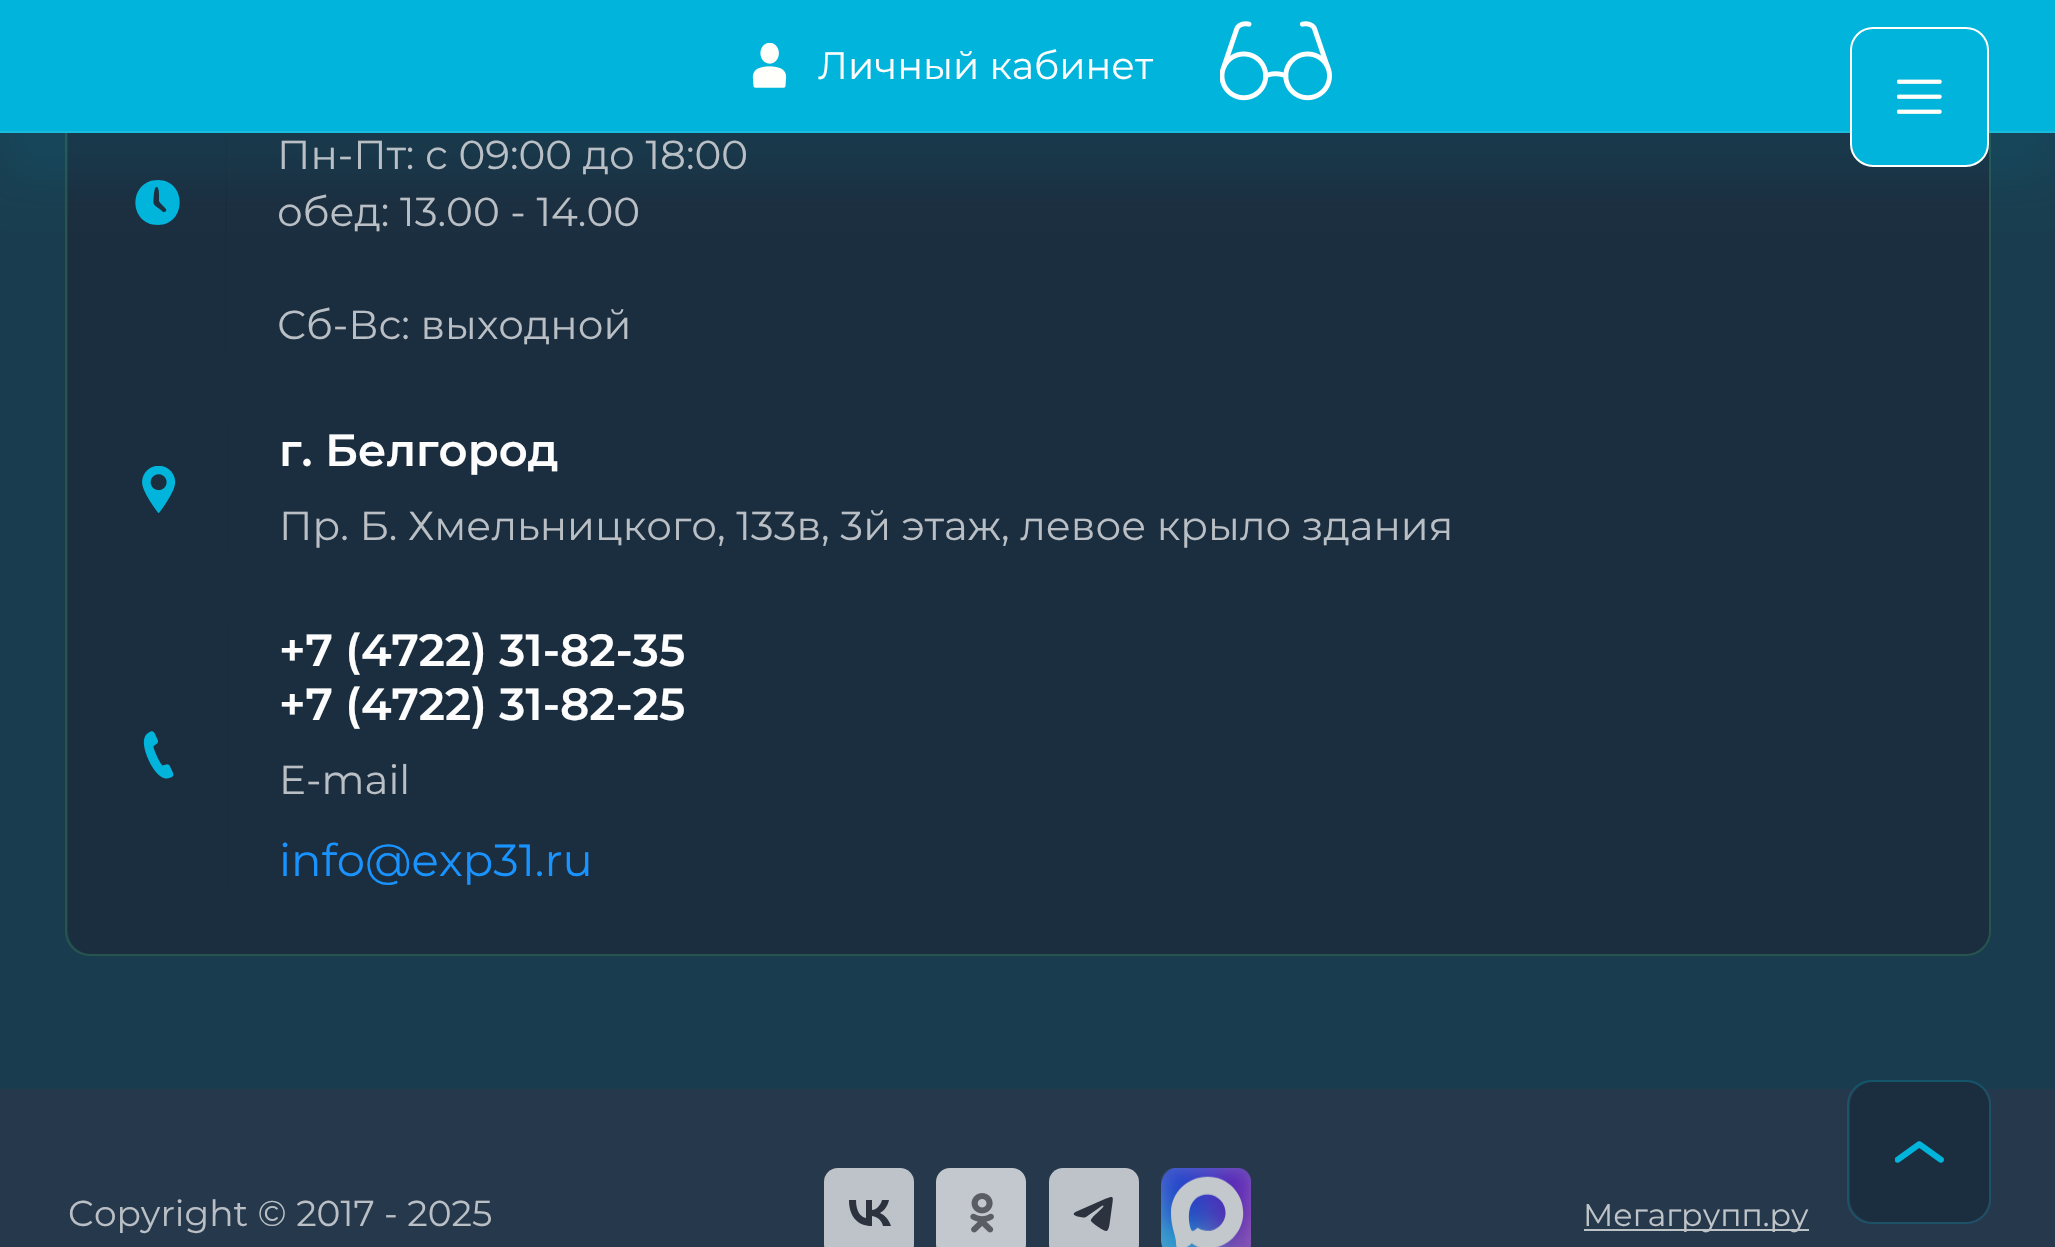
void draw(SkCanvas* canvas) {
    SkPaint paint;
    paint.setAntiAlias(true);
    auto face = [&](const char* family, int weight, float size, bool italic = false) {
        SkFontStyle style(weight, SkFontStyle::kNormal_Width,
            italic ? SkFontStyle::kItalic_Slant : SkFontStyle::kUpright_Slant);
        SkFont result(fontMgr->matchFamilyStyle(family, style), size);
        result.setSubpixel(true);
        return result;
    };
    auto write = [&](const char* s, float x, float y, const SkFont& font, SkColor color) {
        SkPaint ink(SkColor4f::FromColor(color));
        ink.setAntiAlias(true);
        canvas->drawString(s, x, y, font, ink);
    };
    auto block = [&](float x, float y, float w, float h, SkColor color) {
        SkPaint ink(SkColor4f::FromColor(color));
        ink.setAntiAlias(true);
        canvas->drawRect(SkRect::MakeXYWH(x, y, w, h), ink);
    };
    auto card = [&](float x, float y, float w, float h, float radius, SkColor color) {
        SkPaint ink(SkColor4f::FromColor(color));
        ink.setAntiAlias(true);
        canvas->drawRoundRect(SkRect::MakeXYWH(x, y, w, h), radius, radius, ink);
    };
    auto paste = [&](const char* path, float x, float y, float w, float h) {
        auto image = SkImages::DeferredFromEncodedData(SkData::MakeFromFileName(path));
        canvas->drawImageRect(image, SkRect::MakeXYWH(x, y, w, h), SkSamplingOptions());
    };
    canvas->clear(SkColorSetRGB(25, 61, 79));
    paint.setStyle(SkPaint::kStroke_Style);
    paint.setStrokeWidth(2);
    paint.setColor(SkColorSetRGB(40, 84, 78));
    canvas->drawRoundRect(SkRect::MakeXYWH(66, -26, 1924, 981), 24, 24, paint);
    card(68, -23, 1921, 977, 23, SkColorSetRGB(27, 46, 63));
    paint.setStyle(SkPaint::kFill_Style);
    paint.setColor(SkColorSetRGB(0, 180, 219));
    canvas->drawPath(SkPathBuilder(SkPathFillType::kEvenOdd).moveTo(158, 180).cubicTo(128, 180, 128, 225, 158, 225).cubicTo(187, 225, 187, 180, 158, 180).close().moveTo(166, 211).cubicTo(164, 213, 163, 212, 162, 211).cubicTo(152, 203, 153, 206, 154, 193).lineTo(155, 188).cubicTo(160, 183, 159, 199, 159, 200).lineTo(159, 201).cubicTo(160, 204, 168, 209, 166, 211).close().detach(), paint);
    block(225, 133, 2, 223, SkColorSetRGB(27, 44, 59));
    paint.setColor(SkColorSetARGB(20, 0, 180, 219));
    paint.setMaskFilter(SkMaskFilter::MakeBlur(kNormal_SkBlurStyle, 22.5f));
    canvas->drawRect(SkRect::MakeXYWH(0, 45, 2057, 133), paint);
    paint.setMaskFilter(nullptr);
    block(0, 0, 2055, 131, SkColorSetRGB(0, 180, 219));
    block(0, 131, 2055, 2, SkColorSetRGB(26, 188, 222));
    paste("pic1.png", 752, 43, 35, 45);
    auto kFont1 = face("Montserrat", 400, 38.25f);
    write("Личный кабинет", 818, 79, kFont1, SkColorSetRGB(253, 253, 253));
    paste("pic2.png", 1220, 21, 112, 80);
    paint.setColor(SkColorSetRGB(0, 180, 219));
    canvas->drawRoundRect(SkRect::MakeXYWH(1851, 28, 137, 138), 22, 22, paint);
    paint.setStyle(SkPaint::kStroke_Style);
    paint.setColor(SkColorSetRGB(255, 255, 252));
    canvas->drawRoundRect(SkRect::MakeXYWH(1851, 28, 137, 138), 22, 22, paint);
    paste("pic3.png", 1897, 79, 45, 35);
    auto kFont2 = face("Montserrat", 400, 40.5f);
    write("Пн-Пт: с 09:00 до 18:00", 277, 169, kFont2, SkColorSetRGB(185, 191, 196));
    write("обед: 13.00 - 14.00", 277, 226, kFont2, SkColorSetRGB(185, 191, 196));
    write("Сб-Вс: выходной", 277, 339, kFont2, SkColorSetRGB(185, 191, 196));
    paste("pic4.png", 142, 466, 34, 47);
    block(227, 423, 2, 133, SkColorSetRGB(27, 44, 59));
    auto kFont3 = face("Montserrat", 600, 45);
    write("г. Белгород", 279, 466, kFont3, SkColorSetRGB(253, 253, 253));
    write("Пр. Б. Хмельницкого, 133в, 3й этаж, левое крыло здания", 279, 540, kFont2, SkColorSetRGB(185, 191, 196));
    paste("pic5.png", 143, 731, 31, 48);
    block(227, 623, 2, 264, SkColorSetRGB(27, 44, 59));
    write("+7 (4722) 31-82-35", 279, 666, kFont3, SkColorSetRGB(253, 253, 253));
    write("+7 (4722) 31-82-25", 279, 720, kFont3, SkColorSetRGB(253, 253, 253));
    write("E-mail", 279, 794, kFont2, SkColorSetRGB(185, 191, 196));
    auto kFont4 = face("Montserrat", 400, 45);
    write("info@exp31.ru", 279, 876, kFont4, SkColorSetRGB(24, 147, 255));
    block(0, 1089, 2055, 158, SkColorSetRGB(38, 56, 75));
    paint.setColor(SkColorSetARGB(51, 0, 180, 219));
    canvas->drawRoundRect(SkRect::MakeXYWH(1848, 1081, 142, 142), 24, 24, paint);
    card(1850, 1082, 139, 140, 23, SkColorSetRGB(27, 46, 63));
    paste("pic6.png", 1895, 1141, 49, 22);
    auto kFont5 = face("Montserrat", 400, 36);
    write("Copyright © 2017 - 2025", 68, 1226, kFont5, SkColorSetRGB(185, 191, 196));
    card(824, 1168, 90, 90, 14, SkColorSetRGB(190, 195, 201));
    paint.setStyle(SkPaint::kFill_Style);
    paint.setColor(SkColorSetRGB(44, 50, 62));
    canvas->drawPath(SkPathBuilder().moveTo(872, 1226).cubicTo(857, 1226, 849, 1216, 849, 1200).lineTo(856, 1200).cubicTo(856, 1212, 861, 1217, 866, 1218).lineTo(866, 1200).lineTo(872, 1200).lineTo(872, 1210).cubicTo(876, 1210, 881, 1205, 882, 1200).lineTo(889, 1200).cubicTo(888, 1205, 885, 1210, 880, 1213).cubicTo(885, 1215, 889, 1220, 891, 1226).lineTo(883, 1226).cubicTo(882, 1221, 878, 1217, 872, 1216).close().detach(), paint);
    card(936, 1168, 90, 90, 14, SkColorSetRGB(53, 70, 87));
    paste("pic7.png", 936, 1168, 90, 79);
    card(1049, 1168, 90, 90, 14, SkColorSetRGB(190, 195, 201));
    canvas->drawPath(SkPathBuilder(SkPathFillType::kEvenOdd).moveTo(1076.5f, 1211.5f).lineTo(1106, 1198.5f).cubicTo(1112.5f, 1196, 1113.5f, 1196, 1112.5f, 1202.5f).lineTo(1109.5f, 1224.5f).cubicTo(1108, 1232, 1107, 1232.5f, 1100.5f, 1228.5f).cubicTo(1098.5f, 1227, 1092, 1223, 1091, 1221).cubicTo(1089.5f, 1218, 1104, 1208, 1103.5f, 1206).lineTo(1102.5f, 1205.5f).lineTo(1086, 1217).cubicTo(1085, 1217.5f, 1084, 1217.5f, 1083, 1217.5f).lineTo(1077.5f, 1216.5f).cubicTo(1074, 1215, 1071.5f, 1214, 1076.5f, 1211.5f).close().detach(), paint);
    card(1161, 1168, 90, 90, 14, SkColorSetRGB(53, 70, 87));
    paste("pic8.png", 1161, 1168, 90, 79);
    block(1584, 1229, 225, 2, SkColorSetRGB(190, 195, 199));
    auto kFont6 = face("Montserrat", 400, 31.5f);
    write("Мегагрупп.ру", 1583, 1226, kFont6, SkColorSetRGB(191, 196, 200));
}
